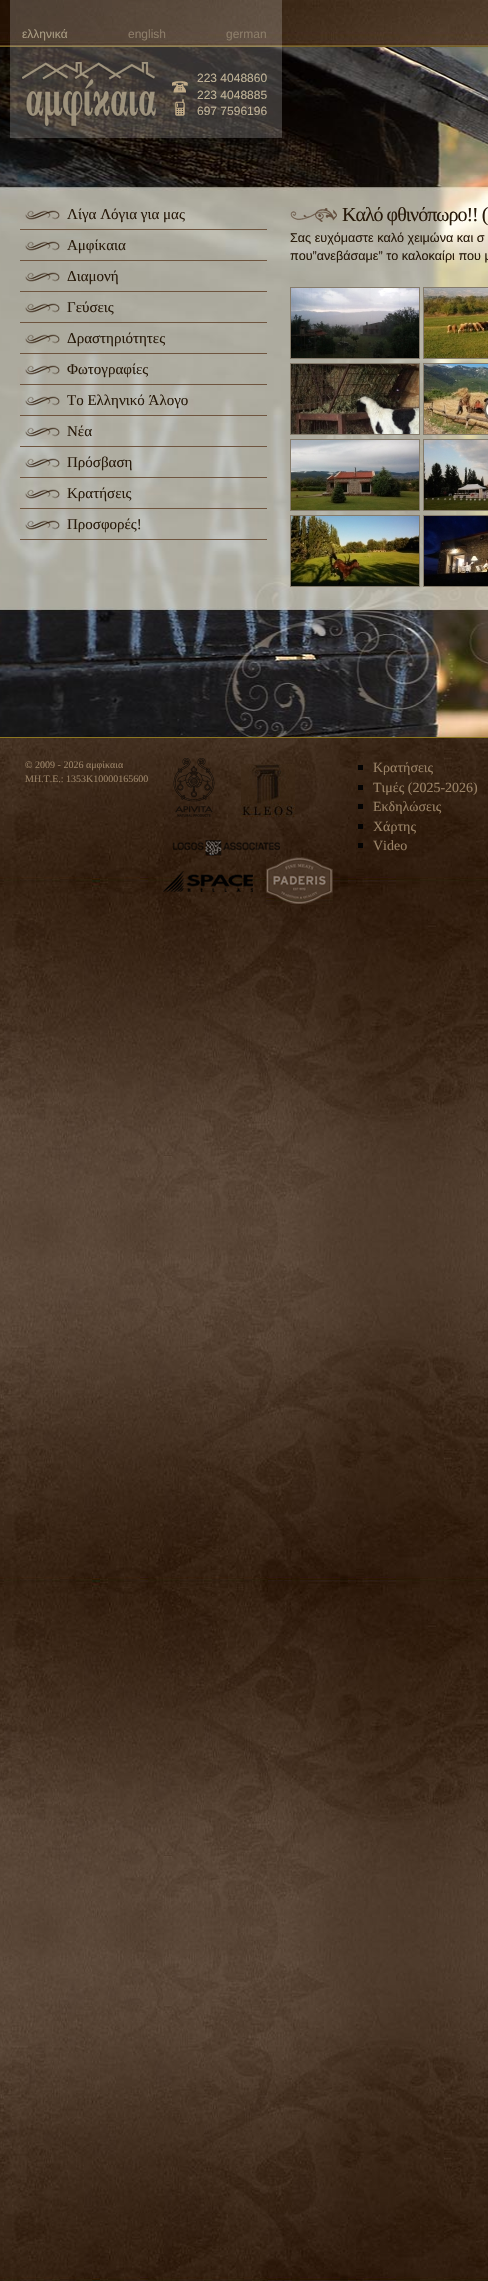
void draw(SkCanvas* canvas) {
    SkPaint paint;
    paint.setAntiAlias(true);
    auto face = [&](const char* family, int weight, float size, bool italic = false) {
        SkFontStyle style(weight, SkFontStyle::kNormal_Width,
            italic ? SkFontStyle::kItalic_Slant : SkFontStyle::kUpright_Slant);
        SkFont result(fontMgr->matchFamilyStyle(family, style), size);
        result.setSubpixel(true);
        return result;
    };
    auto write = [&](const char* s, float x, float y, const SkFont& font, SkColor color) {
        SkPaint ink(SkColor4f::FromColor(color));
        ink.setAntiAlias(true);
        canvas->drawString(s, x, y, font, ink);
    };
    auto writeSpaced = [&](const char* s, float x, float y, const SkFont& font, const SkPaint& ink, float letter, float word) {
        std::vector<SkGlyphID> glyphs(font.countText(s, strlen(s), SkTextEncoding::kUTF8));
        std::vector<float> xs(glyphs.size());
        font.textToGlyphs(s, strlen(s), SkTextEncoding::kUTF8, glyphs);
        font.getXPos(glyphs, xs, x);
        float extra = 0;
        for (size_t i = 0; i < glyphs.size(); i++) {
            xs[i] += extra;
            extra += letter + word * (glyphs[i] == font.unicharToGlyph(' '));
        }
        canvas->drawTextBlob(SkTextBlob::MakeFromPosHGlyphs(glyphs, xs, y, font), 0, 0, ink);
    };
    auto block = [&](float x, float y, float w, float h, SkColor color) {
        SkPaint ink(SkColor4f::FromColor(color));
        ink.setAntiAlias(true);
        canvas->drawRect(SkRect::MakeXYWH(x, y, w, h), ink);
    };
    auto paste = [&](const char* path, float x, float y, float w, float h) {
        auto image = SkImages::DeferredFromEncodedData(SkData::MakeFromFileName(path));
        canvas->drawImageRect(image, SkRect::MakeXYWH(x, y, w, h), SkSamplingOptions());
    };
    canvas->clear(SK_ColorWHITE);
    paste("pic1.png", 0, 738, 488, 1543);
    paste("pic2.png", 0, 0, 488, 47);
    paste("pic3.png", 0, 47, 488, 690);
    block(10, 0, 272, 138, SkColorSetARGB(51, 250, 250, 250));
    auto kFont1 = face("Liberation Sans", 400, 12);
    write("ελληνικά", 22, 38, kFont1, SkColorSetRGB(168, 155, 130));
    write("english", 128, 38, kFont1, SkColorSetRGB(139, 124, 104));
    write("german", 226, 38, kFont1, SkColorSetRGB(139, 124, 104));
    paste("pic4.png", 21, 62, 135, 65);
    paste("pic5.png", 172, 81, 16, 35);
    write("223 4048860", 197, 82, kFont1, SkColorSetRGB(190, 177, 149));
    write("223 4048885", 197, 99, kFont1, SkColorSetRGB(190, 177, 149));
    write("697 7596196", 197, 115, kFont1, SkColorSetRGB(190, 177, 149));
    paste("pic6.png", 25, 210, 35, 10);
    block(20, 229, 247, 1, SkColorSetRGB(110, 84, 62));
    auto kFont2 = face("Liberation Serif", 400, 15);
    write("Λίγα Λόγια για μας", 67, 219, kFont2, SkColorSetRGB(40, 26, 10));
    paste("pic7.png", 25, 241, 35, 10);
    block(20, 260, 247, 1, SkColorSetRGB(110, 84, 62));
    write("Αμφίκαια", 67, 250, kFont2, SkColorSetRGB(40, 26, 10));
    paste("pic8.png", 25, 272, 35, 10);
    block(20, 291, 247, 1, SkColorSetRGB(110, 84, 62));
    write("Διαμονή", 67, 281, kFont2, SkColorSetRGB(40, 26, 10));
    paste("pic9.png", 25, 303, 35, 10);
    block(20, 322, 247, 1, SkColorSetRGB(110, 84, 62));
    write("Γεύσεις", 67, 312, kFont2, SkColorSetRGB(40, 26, 10));
    paste("pic10.png", 25, 334, 35, 10);
    block(20, 353, 247, 1, SkColorSetRGB(110, 84, 62));
    write("Δραστηριότητες", 67, 343, kFont2, SkColorSetRGB(40, 26, 10));
    paste("pic11.png", 25, 365, 35, 10);
    block(20, 384, 247, 1, SkColorSetRGB(110, 84, 62));
    write("Φωτογραφίες", 67, 374, kFont2, SkColorSetRGB(40, 26, 10));
    paste("pic12.png", 25, 396, 35, 10);
    block(20, 415, 247, 1, SkColorSetRGB(110, 84, 62));
    write("Το Ελληνικό Άλογο", 67, 405, kFont2, SkColorSetRGB(40, 26, 10));
    paste("pic13.png", 25, 427, 35, 10);
    block(20, 446, 247, 1, SkColorSetRGB(110, 84, 62));
    write("Νέα", 67, 436, kFont2, SkColorSetRGB(40, 26, 10));
    paste("pic14.png", 25, 458, 35, 10);
    block(20, 477, 247, 1, SkColorSetRGB(110, 84, 62));
    write("Πρόσβαση", 67, 467, kFont2, SkColorSetRGB(40, 26, 10));
    paste("pic15.png", 25, 489, 35, 10);
    block(20, 508, 247, 1, SkColorSetRGB(110, 84, 62));
    write("Κρατήσεις", 67, 498, kFont2, SkColorSetRGB(40, 26, 10));
    paste("pic16.png", 25, 520, 35, 10);
    block(20, 539, 247, 1, SkColorSetRGB(110, 84, 62));
    write("Προσφορές!", 67, 529, kFont2, SkColorSetRGB(40, 26, 10));
    paste("pic17.png", 290, 208, 47, 14);
    auto kFont3 = face("Liberation Serif", 400, 20);
    paint.setColor(SkColorSetRGB(40, 26, 10));
    writeSpaced("Καλό φθινόπωρο!! (", 342, 221, kFont3, paint, -1, 0);
    auto kFont4 = face("Liberation Sans", 400, 12.6f);
    write("Σας ευχόμαστε καλό χειμώνα και σ", 290, 242, kFont4, SkColorSetRGB(40, 26, 10));
    write("που”ανεβάσαμε” το καλοκαίρι που μ", 290, 260, kFont4, SkColorSetRGB(40, 26, 10));
    paint.setStyle(SkPaint::kStroke_Style);
    paint.setStrokeWidth(1);
    paint.setColor(SkColorSetRGB(133, 123, 107));
    canvas->drawRect(SkRect::MakeXYWH(290.5f, 287.5f, 129, 71), paint);
    paste("pic18.png", 291, 288, 128, 70);
    canvas->drawRect(SkRect::MakeXYWH(423.5f, 287.5f, 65, 71), paint);
    paste("pic19.png", 424, 288, 64, 70);
    canvas->drawRect(SkRect::MakeXYWH(290.5f, 363.5f, 129, 71), paint);
    paste("pic20.png", 291, 364, 128, 70);
    canvas->drawRect(SkRect::MakeXYWH(423.5f, 363.5f, 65, 71), paint);
    paste("pic21.png", 424, 364, 64, 70);
    canvas->drawRect(SkRect::MakeXYWH(290.5f, 439.5f, 129, 71), paint);
    paste("pic22.png", 291, 440, 128, 70);
    canvas->drawRect(SkRect::MakeXYWH(423.5f, 439.5f, 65, 71), paint);
    paste("pic23.png", 424, 440, 64, 70);
    canvas->drawRect(SkRect::MakeXYWH(290.5f, 515.5f, 129, 71), paint);
    paste("pic24.png", 291, 516, 128, 70);
    canvas->drawRect(SkRect::MakeXYWH(423.5f, 515.5f, 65, 71), paint);
    paste("pic25.png", 424, 516, 64, 70);
    block(0, 737, 488, 1, SkColorSetRGB(140, 119, 32));
    auto kFont5 = face("Liberation Serif", 400, 10);
    write("© 2009 - 2026 αμφίκαια", 25, 768, kFont5, SkColorSetRGB(152, 129, 101));
    write("ΜΗ.Τ.Ε.: 1353Κ10000165600", 25, 782, kFont5, SkColorSetRGB(152, 129, 101));
    paste("pic26.png", 173, 758, 42, 59);
    paste("pic27.png", 241, 764, 54, 53);
    paste("pic28.png", 173, 840, 107, 16);
    paste("pic29.png", 163, 871, 90, 21);
    paste("pic30.png", 266, 857, 67, 48);
    auto kFont6 = face("Liberation Serif", 400, 14);
    write("Κρατήσεις", 373, 772, kFont6, SkColorSetRGB(152, 129, 101));
    block(358, 765, 5, 5, SkColorSetRGB(3, 3, 3));
    write("Τιμές (2025-2026)", 373, 792, kFont6, SkColorSetRGB(152, 129, 101));
    block(358, 785, 5, 5, SkColorSetRGB(3, 3, 3));
    write("Εκδηλώσεις", 373, 811, kFont6, SkColorSetRGB(152, 129, 101));
    block(358, 804, 5, 5, SkColorSetRGB(3, 3, 3));
    write("Χάρτης", 373, 831, kFont6, SkColorSetRGB(152, 129, 101));
    block(358, 824, 5, 5, SkColorSetRGB(3, 3, 3));
    write("Video", 373, 850, kFont6, SkColorSetRGB(152, 129, 101));
    block(358, 843, 5, 5, SkColorSetRGB(3, 3, 3));
}
